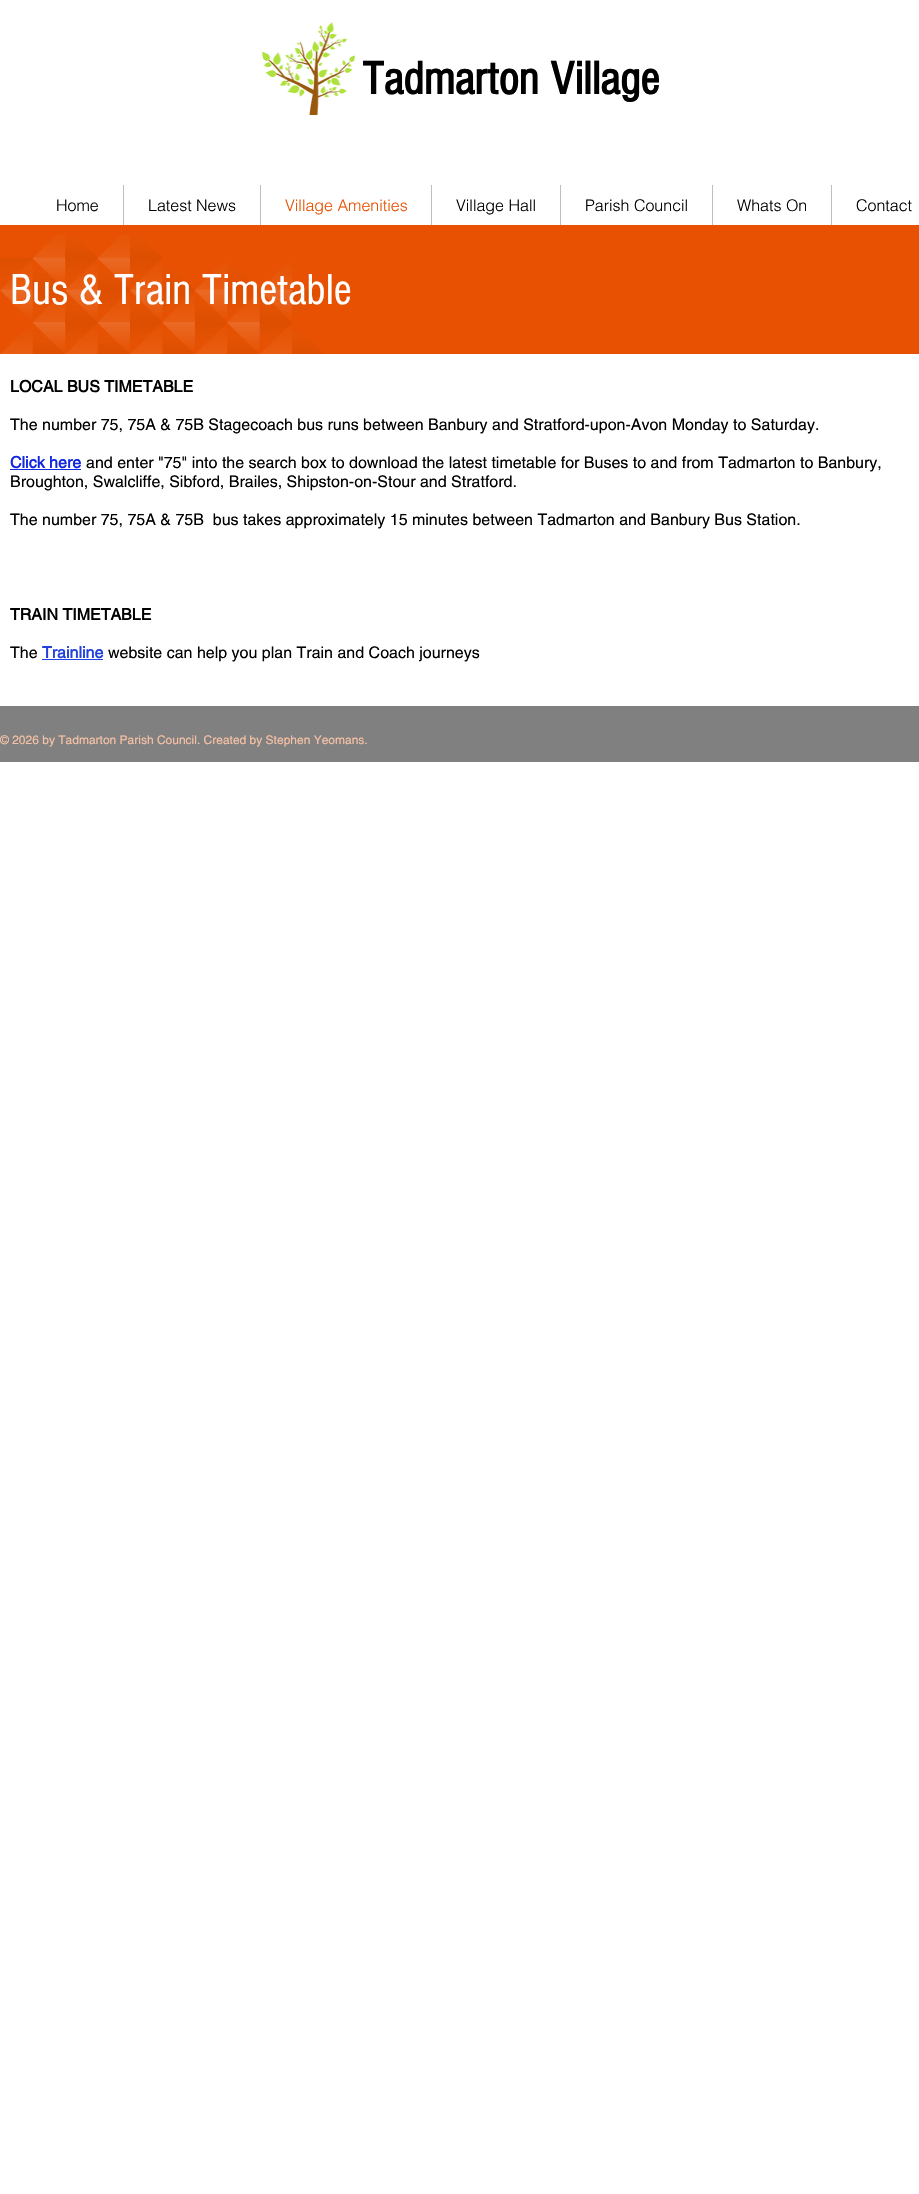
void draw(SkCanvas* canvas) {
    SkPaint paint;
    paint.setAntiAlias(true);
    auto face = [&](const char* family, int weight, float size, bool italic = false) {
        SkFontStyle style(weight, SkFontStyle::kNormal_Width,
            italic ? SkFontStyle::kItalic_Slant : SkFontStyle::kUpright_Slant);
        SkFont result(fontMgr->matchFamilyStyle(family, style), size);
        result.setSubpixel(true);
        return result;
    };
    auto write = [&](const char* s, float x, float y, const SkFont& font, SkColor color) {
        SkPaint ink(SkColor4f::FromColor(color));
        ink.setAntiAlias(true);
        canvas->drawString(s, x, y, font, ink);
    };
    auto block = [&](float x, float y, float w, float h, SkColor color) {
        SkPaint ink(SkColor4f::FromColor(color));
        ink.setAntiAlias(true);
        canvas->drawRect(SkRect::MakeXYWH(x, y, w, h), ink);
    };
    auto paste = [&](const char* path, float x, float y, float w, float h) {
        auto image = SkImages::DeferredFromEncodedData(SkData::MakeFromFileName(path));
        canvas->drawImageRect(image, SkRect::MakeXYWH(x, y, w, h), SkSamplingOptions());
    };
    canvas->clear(SK_ColorWHITE);
    paste("pic1.png", 262, 22, 93, 93);
    auto kFont1 = face("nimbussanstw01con", 700, 48);
    write("Tadmarton Village", 362, 94, kFont1, SK_ColorBLACK);
    auto kFont2 = face("helvetica", 300, 16);
    write("Home", 56, 211, kFont2, SK_ColorBLACK);
    block(123, 185, 1, 40, SkColorSetRGB(191, 191, 191));
    write("Latest News", 148, 211, kFont2, SK_ColorBLACK);
    block(260, 185, 1, 40, SkColorSetRGB(191, 191, 191));
    write("Village Amenities", 285, 211, kFont2, SkColorSetRGB(231, 81, 1));
    block(431, 185, 1, 40, SkColorSetRGB(191, 191, 191));
    write("Village Hall", 456, 211, kFont2, SK_ColorBLACK);
    block(560, 185, 1, 40, SkColorSetRGB(191, 191, 191));
    write("Parish Council", 585, 211, kFont2, SK_ColorBLACK);
    block(712, 185, 1, 40, SkColorSetRGB(191, 191, 191));
    write("Whats On", 737, 211, kFont2, SK_ColorBLACK);
    block(831, 185, 1, 40, SkColorSetRGB(191, 191, 191));
    write("Contact", 856, 211, kFont2, SK_ColorBLACK);
    block(0, 225, 919, 129, SkColorSetRGB(231, 81, 1));
    paste("pic2.png", 0, 235, 324, 119);
    auto kFont3 = face("nimbussanstw01con", 400, 45);
    write("Bus & Train Timetable", 10, 304, kFont3, SK_ColorWHITE);
    auto kFont4 = face("helvetica", 700, 16);
    write("LOCAL BUS TIMETABLE", 10, 392, kFont4, SK_ColorBLACK);
    auto kFont5 = face("helvetica", 400, 16);
    write("The number 75, 75A & 75B Stagecoach bus runs between Banbury and Stratford-upon-Avon Monday to Saturday.", 10, 430, kFont5, SK_ColorBLACK);
    write("Click here", 10, 468, kFont4, SkColorSetRGB(18, 39, 224));
    block(10, 469, 71, 1, SkColorSetRGB(18, 39, 224));
    write("and enter \"75\" into the search box to download the latest timetable for Buses to and from Tadmarton to Banbury,", 86, 468, kFont5, SK_ColorBLACK);
    write("Broughton, Swalcliffe, Sibford, Brailes, Shipston-on-Stour and Stratford.", 10, 487, kFont5, SK_ColorBLACK);
    write("The number 75, 75A & 75B  bus takes approximately 15 minutes between Tadmarton and Banbury Bus Station.", 10, 525, kFont5, SK_ColorBLACK);
    write("TRAIN TIMETABLE", 10, 620, kFont4, SK_ColorBLACK);
    write("The", 10, 658, kFont5, SK_ColorBLACK);
    write("Trainline", 42, 658, kFont4, SkColorSetRGB(35, 66, 219));
    block(42, 659, 61, 1, SkColorSetRGB(35, 66, 219));
    write("website can help you plan Train and Coach journeys", 108, 658, kFont5, SK_ColorBLACK);
    block(0, 706, 919, 56, SkColorSetRGB(128, 128, 128));
    auto kFont6 = face("helvetica", 400, 12);
    write("© 2026 by Tadmarton Parish Council. Created by Stephen Yeomans.", 0, 744, kFont6, SkColorSetRGB(247, 194, 165));
}
